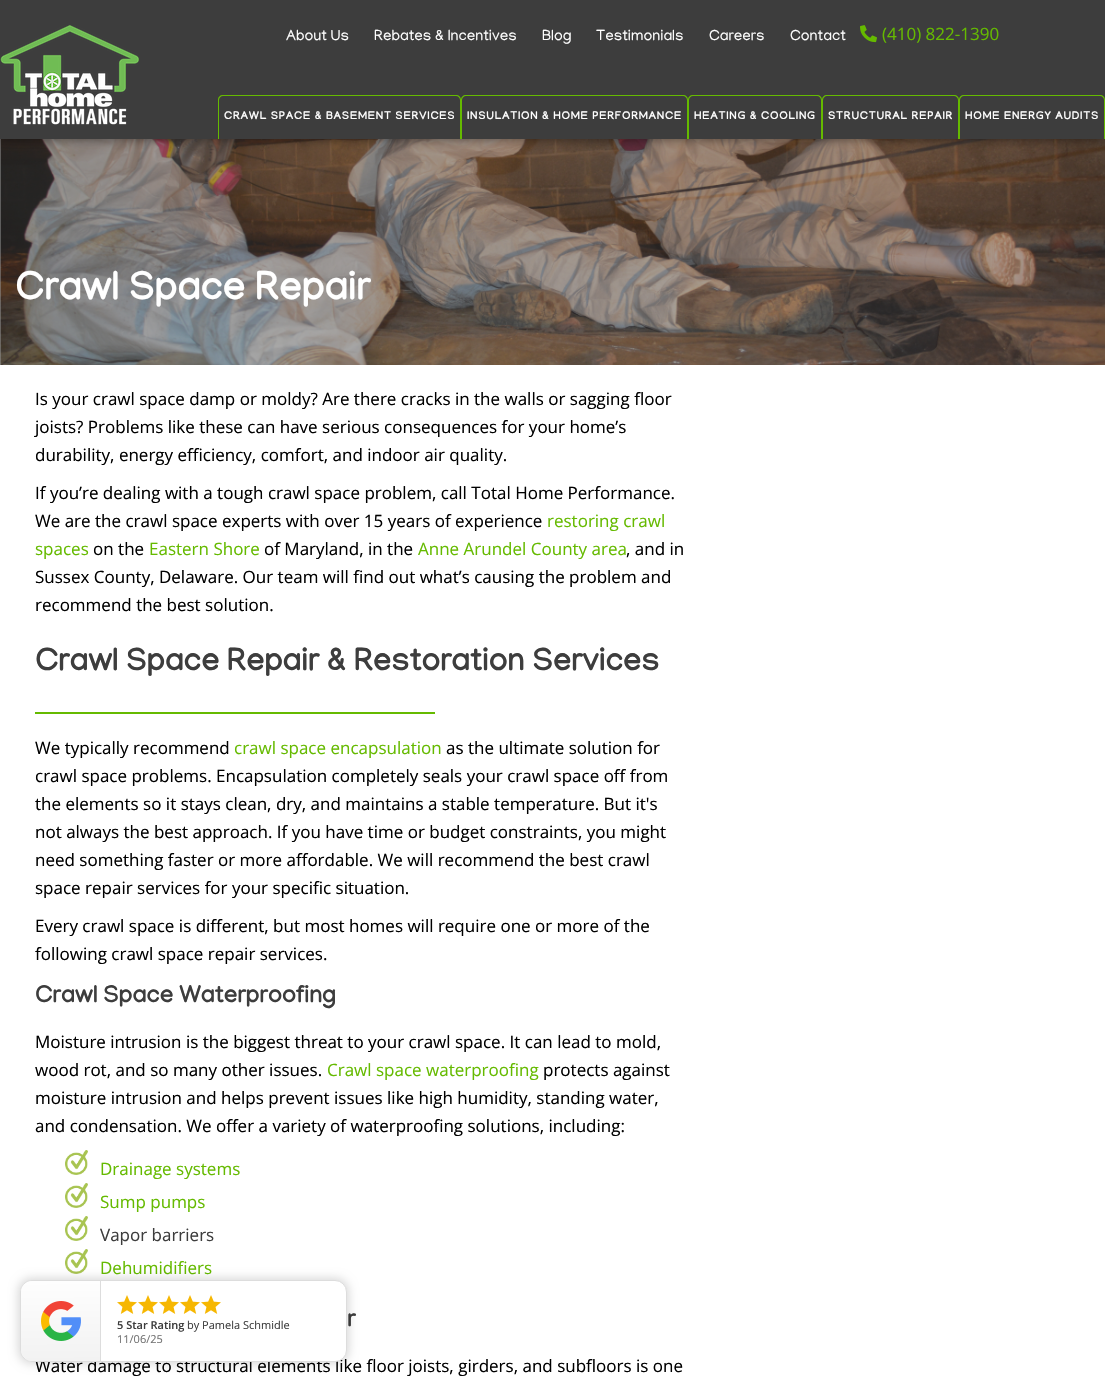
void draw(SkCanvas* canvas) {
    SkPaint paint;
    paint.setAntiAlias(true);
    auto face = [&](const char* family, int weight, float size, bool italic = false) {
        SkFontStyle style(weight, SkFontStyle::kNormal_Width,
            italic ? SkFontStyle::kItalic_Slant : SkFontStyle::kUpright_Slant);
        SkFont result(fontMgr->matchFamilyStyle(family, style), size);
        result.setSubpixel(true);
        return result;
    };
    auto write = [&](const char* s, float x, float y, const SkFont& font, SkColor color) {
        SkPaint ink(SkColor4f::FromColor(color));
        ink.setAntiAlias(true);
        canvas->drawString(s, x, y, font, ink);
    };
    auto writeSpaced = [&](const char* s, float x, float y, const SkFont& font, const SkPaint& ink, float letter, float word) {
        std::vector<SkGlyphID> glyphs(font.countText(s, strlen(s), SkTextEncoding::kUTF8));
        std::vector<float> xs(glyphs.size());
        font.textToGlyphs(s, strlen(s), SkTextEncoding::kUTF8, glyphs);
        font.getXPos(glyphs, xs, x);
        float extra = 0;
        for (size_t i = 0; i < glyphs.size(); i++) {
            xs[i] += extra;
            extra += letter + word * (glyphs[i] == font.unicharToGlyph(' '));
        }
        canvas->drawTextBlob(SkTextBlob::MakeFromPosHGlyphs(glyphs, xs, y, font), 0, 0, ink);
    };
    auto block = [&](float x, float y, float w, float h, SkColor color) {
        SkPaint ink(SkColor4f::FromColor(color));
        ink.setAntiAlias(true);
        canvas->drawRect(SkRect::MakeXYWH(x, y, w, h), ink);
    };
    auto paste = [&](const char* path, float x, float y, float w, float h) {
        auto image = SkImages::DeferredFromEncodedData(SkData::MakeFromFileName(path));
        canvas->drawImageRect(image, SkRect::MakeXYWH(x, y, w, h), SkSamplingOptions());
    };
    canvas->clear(SK_ColorWHITE);
    block(0, 139, 1, 226, SkColorSetRGB(168, 168, 168));
    canvas->save();
    canvas->clipRect(SkRect::MakeXYWH(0, 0, 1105, 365));
    paint.setColor(SkColorSetARGB(179, 27, 27, 27));
    paint.setMaskFilter(SkMaskFilter::MakeBlur(kNormal_SkBlurStyle, 2.5f));
    canvas->drawRect(SkRect::MakeXYWH(3, -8, 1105, 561), paint);
    paint.setMaskFilter(nullptr);
    canvas->restore();
    paste("pic3.png", 0, 139, 1105, 226);
    paint.setColor(SkColorSetARGB(128, 0, 0, 0));
    paint.setMaskFilter(SkMaskFilter::MakeBlur(kNormal_SkBlurStyle, 5));
    canvas->drawRect(SkRect::MakeXYWH(0, 0, 1105, 139), paint);
    paint.setMaskFilter(nullptr);
    block(0, 0, 1105, 139, SkColorSetRGB(61, 61, 61));
    paste("pic1.png", 0, 25, 139, 100);
    auto kFont1 = face("Manjari", 400, 15);
    write("About Us", 286, 40, kFont1, SK_ColorWHITE);
    write("Rebates & Incentives", 374, 40, kFont1, SK_ColorWHITE);
    write("Blog", 542, 40, kFont1, SK_ColorWHITE);
    write("Testimonials", 596, 40, kFont1, SK_ColorWHITE);
    write("Careers", 709, 40, kFont1, SK_ColorWHITE);
    write("Contact", 790, 40, kFont1, SK_ColorWHITE);
    paste("pic2.png", 860, 25, 17, 18);
    auto kFont2 = face("Open Sans", 400, 17);
    write("(410) 822-1390", 882, 40, kFont2, SkColorSetRGB(101, 186, 0));
    paint.setColor(SkColorSetRGB(101, 186, 0));
    canvas->drawPath(SkPathBuilder(SkPathFillType::kEvenOdd).moveTo(223, 95).lineTo(456, 95).cubicTo(459, 95, 461, 97, 461, 100).lineTo(461, 139).lineTo(218, 139).lineTo(218, 100).cubicTo(218, 97, 220, 95, 223, 95).close().moveTo(223, 96).lineTo(456, 96).cubicTo(458, 96, 460, 98, 460, 100).lineTo(460, 139).lineTo(219, 139).lineTo(219, 100).cubicTo(219, 98, 221, 96, 223, 96).close().detach(), paint);
    auto kFont3 = face("Manjari", 700, 11);
    paint.setColor(SK_ColorWHITE);
    writeSpaced("CRAWL SPACE & BASEMENT SERVICES", 224, 119, kFont3, paint, 1, 0);
    paint.setColor(SkColorSetRGB(101, 186, 0));
    canvas->drawPath(SkPathBuilder(SkPathFillType::kEvenOdd).moveTo(466, 95).lineTo(683, 95).cubicTo(686, 95, 688, 97, 688, 100).lineTo(688, 139).lineTo(461, 139).lineTo(461, 100).cubicTo(461, 97, 463, 95, 466, 95).close().moveTo(466, 96).lineTo(683, 96).cubicTo(685, 96, 687, 98, 687, 100).lineTo(687, 139).lineTo(462, 139).lineTo(462, 100).cubicTo(462, 98, 464, 96, 466, 96).close().detach(), paint);
    paint.setColor(SK_ColorWHITE);
    writeSpaced("INSULATION & HOME PERFORMANCE", 467, 119, kFont3, paint, 1, 0);
    paint.setColor(SkColorSetRGB(101, 186, 0));
    canvas->drawPath(SkPathBuilder(SkPathFillType::kEvenOdd).moveTo(693, 95).lineTo(817, 95).cubicTo(820, 95, 822, 97, 822, 100).lineTo(822, 139).lineTo(688, 139).lineTo(688, 100).cubicTo(688, 97, 690, 95, 693, 95).close().moveTo(693, 96).lineTo(817, 96).cubicTo(819, 96, 821, 98, 821, 100).lineTo(821, 139).lineTo(689, 139).lineTo(689, 100).cubicTo(689, 98, 691, 96, 693, 96).close().detach(), paint);
    paint.setColor(SK_ColorWHITE);
    writeSpaced("HEATING & COOLING", 694, 119, kFont3, paint, 1, 0);
    paint.setColor(SkColorSetRGB(101, 186, 0));
    canvas->drawPath(SkPathBuilder(SkPathFillType::kEvenOdd).moveTo(827, 95).lineTo(954, 95).cubicTo(957, 95, 959, 97, 959, 100).lineTo(959, 139).lineTo(822, 139).lineTo(822, 100).cubicTo(822, 97, 824, 95, 827, 95).close().moveTo(827, 96).lineTo(954, 96).cubicTo(956, 96, 958, 98, 958, 100).lineTo(958, 139).lineTo(823, 139).lineTo(823, 100).cubicTo(823, 98, 825, 96, 827, 96).close().detach(), paint);
    paint.setColor(SK_ColorWHITE);
    writeSpaced("STRUCTURAL REPAIR", 828, 119, kFont3, paint, 1, 0);
    paint.setColor(SkColorSetRGB(101, 186, 0));
    canvas->drawPath(SkPathBuilder(SkPathFillType::kEvenOdd).moveTo(964, 95).lineTo(1100, 95).cubicTo(1103, 95, 1105, 97, 1105, 100).lineTo(1105, 139).lineTo(959, 139).lineTo(959, 100).cubicTo(959, 97, 961, 95, 964, 95).close().moveTo(964, 96).lineTo(1100, 96).cubicTo(1102, 96, 1104, 98, 1104, 100).lineTo(1104, 139).lineTo(960, 139).lineTo(960, 100).cubicTo(960, 98, 962, 96, 964, 96).close().detach(), paint);
    paint.setColor(SK_ColorWHITE);
    writeSpaced("HOME ENERGY AUDITS", 965, 119, kFont3, paint, 1, 0);
    auto kFont4 = face("Manjari", 700, 40);
    write("Crawl Space Repair", 15, 299, kFont4, SK_ColorWHITE);
    write("Is your crawl space damp or moldy? Are there cracks in the walls or sagging floor", 35, 405, kFont2, SK_ColorBLACK);
    write("joists? Problems like these can have serious consequences for your home’s", 35, 433, kFont2, SK_ColorBLACK);
    write("durability, energy efficiency, comfort, and indoor air quality.", 35, 461, kFont2, SK_ColorBLACK);
    write("If you’re dealing with a tough crawl space problem, call Total Home Performance.", 35, 499, kFont2, SK_ColorBLACK);
    write("We are the crawl space experts with over 15 years of experience", 35, 527, kFont2, SK_ColorBLACK);
    write("restoring crawl", 547, 527, kFont2, SkColorSetRGB(101, 186, 0));
    write("spaces", 35, 555, kFont2, SkColorSetRGB(101, 186, 0));
    write("on the", 93, 555, kFont2, SK_ColorBLACK);
    write("Eastern Shore", 149, 555, kFont2, SkColorSetRGB(101, 186, 0));
    write("of Maryland, in the", 264, 555, kFont2, SK_ColorBLACK);
    write("Anne Arundel County area", 418, 555, kFont2, SkColorSetRGB(101, 186, 0));
    write(", and in", 626, 555, kFont2, SK_ColorBLACK);
    write("Sussex County, Delaware. Our team will find out what’s causing the problem and", 35, 583, kFont2, SK_ColorBLACK);
    write("recommend the best solution.", 35, 611, kFont2, SK_ColorBLACK);
    auto kFont5 = face("Manjari", 700, 32);
    write("Crawl Space Repair & Restoration Services", 35, 670, kFont5, SkColorSetRGB(61, 61, 61));
    block(35, 712, 400, 2, SkColorSetRGB(101, 186, 0));
    write("We typically recommend", 35, 754, kFont2, SK_ColorBLACK);
    write("crawl space encapsulation", 234, 754, kFont2, SkColorSetRGB(101, 186, 0));
    write("as the ultimate solution for", 446, 754, kFont2, SK_ColorBLACK);
    write("crawl space problems. Encapsulation completely seals your crawl space off from", 35, 782, kFont2, SK_ColorBLACK);
    write("the elements so it stays clean, dry, and maintains a stable temperature. But it's", 35, 810, kFont2, SK_ColorBLACK);
    write("not always the best approach. If you have time or budget constraints, you might", 35, 838, kFont2, SK_ColorBLACK);
    write("need something faster or more affordable. We will recommend the best crawl", 35, 866, kFont2, SK_ColorBLACK);
    write("space repair services for your specific situation.", 35, 894, kFont2, SK_ColorBLACK);
    write("Every crawl space is different, but most homes will require one or more of the", 35, 932, kFont2, SK_ColorBLACK);
    write("following crawl space repair services.", 35, 960, kFont2, SK_ColorBLACK);
    auto kFont6 = face("Manjari", 700, 24);
    write("Crawl Space Waterproofing", 35, 1002, kFont6, SkColorSetRGB(61, 61, 61));
    write("Moisture intrusion is the biggest threat to your crawl space. It can lead to mold,", 35, 1048, kFont2, SK_ColorBLACK);
    write("wood rot, and so many other issues.", 35, 1076, kFont2, SK_ColorBLACK);
    write("Crawl space waterproofing", 327, 1076, kFont2, SkColorSetRGB(101, 186, 0));
    write("protects against", 543, 1076, kFont2, SK_ColorBLACK);
    write("moisture intrusion and helps prevent issues like high humidity, standing water,", 35, 1104, kFont2, SK_ColorBLACK);
    write("and condensation. We offer a variety of waterproofing solutions, including:", 35, 1132, kFont2, SK_ColorBLACK);
    paste("pic4.png", 65, 1150, 23, 25);
    write("Drainage systems", 100, 1175, kFont2, SkColorSetRGB(101, 186, 0));
    paste("pic4.png", 65, 1183, 23, 25);
    write("Sump pumps", 100, 1208, kFont2, SkColorSetRGB(101, 186, 0));
    paste("pic4.png", 65, 1216, 23, 25);
    write("Vapor barriers", 100, 1241, kFont2, SkColorSetRGB(61, 61, 61));
    paste("pic4.png", 65, 1249, 23, 25);
    write("Dehumidifiers", 100, 1274, kFont2, SkColorSetRGB(101, 186, 0));
    write("r", 347, 1326, kFont6, SkColorSetRGB(61, 61, 61));
    write("Water damage to structural elements like floor joists, girders, and subfloors is one", 35, 1372, kFont2, SK_ColorBLACK);
    paint.setColor(SkColorSetARGB(38, 0, 0, 0));
    paint.setMaskFilter(SkMaskFilter::MakeBlur(kNormal_SkBlurStyle, 5));
    canvas->drawRoundRect(SkRect::MakeXYWH(18, 1278, 331, 86), 14, 14, paint);
    paint.setMaskFilter(nullptr);
    paint.setColor(SK_ColorWHITE);
    canvas->drawRoundRect(SkRect::MakeXYWH(20.5f, 1280.5f, 326, 81), 11.5f, 11.5f, paint);
    paint.setStyle(SkPaint::kStroke_Style);
    paint.setStrokeWidth(1);
    paint.setColor(SkColorSetRGB(221, 221, 221));
    canvas->drawRoundRect(SkRect::MakeXYWH(20.5f, 1280.5f, 326, 81), 11.5f, 11.5f, paint);
    paint.setStyle(SkPaint::kFill_Style);
    {
        const SkColor colors[] = {SkColorSetRGB(254, 254, 254), SkColorSetRGB(242, 242, 242)};
        const float stops[] = {0, 1};
        const SkPoint ends[] = {{60, 1281}, {61, 1361}};
        paint.setShader(SkGradientShader::MakeLinear(ends, colors, stops, 2, SkTileMode::kClamp));
        paint.setAlpha(255);
    }
    canvas->drawPath(SkPathBuilder().moveTo(32, 1281).lineTo(101, 1281).lineTo(101, 1361).lineTo(32, 1361).cubicTo(26, 1361, 21, 1356, 21, 1350).lineTo(21, 1292).cubicTo(21, 1286, 26, 1281, 32, 1281).close().detach(), paint);
    block(100, 1281, 1, 80, SkColorSetRGB(221, 221, 221));
    paste("pic5.png", 41, 1301, 40, 40);
    paste("pic6.png", 117, 1295, 20, 19);
    paste("pic6.png", 138, 1295, 20, 19);
    paste("pic6.png", 159, 1295, 20, 19);
    paste("pic6.png", 180, 1295, 20, 19);
    paste("pic6.png", 201, 1295, 20, 19);
    auto kFont7 = face("Open Sans", 600, 11);
    write("5 Star Rating", 117, 1329, kFont7, SkColorSetRGB(61, 61, 61));
    auto kFont8 = face("Open Sans", 400, 11);
    write("by Pamela Schmidle", 187, 1329, kFont8, SkColorSetRGB(61, 61, 61));
    write("11/06/25", 117, 1343, kFont8, SkColorSetRGB(115, 115, 115));
}
